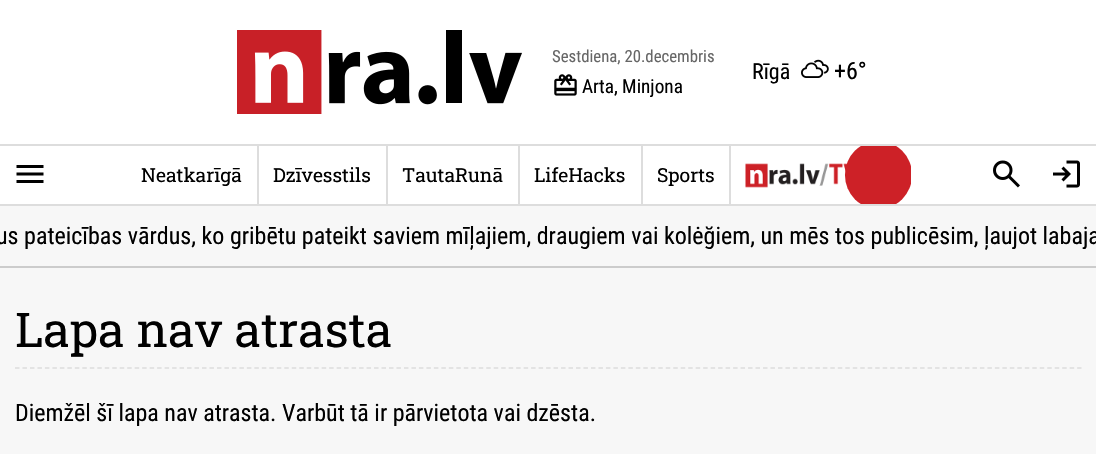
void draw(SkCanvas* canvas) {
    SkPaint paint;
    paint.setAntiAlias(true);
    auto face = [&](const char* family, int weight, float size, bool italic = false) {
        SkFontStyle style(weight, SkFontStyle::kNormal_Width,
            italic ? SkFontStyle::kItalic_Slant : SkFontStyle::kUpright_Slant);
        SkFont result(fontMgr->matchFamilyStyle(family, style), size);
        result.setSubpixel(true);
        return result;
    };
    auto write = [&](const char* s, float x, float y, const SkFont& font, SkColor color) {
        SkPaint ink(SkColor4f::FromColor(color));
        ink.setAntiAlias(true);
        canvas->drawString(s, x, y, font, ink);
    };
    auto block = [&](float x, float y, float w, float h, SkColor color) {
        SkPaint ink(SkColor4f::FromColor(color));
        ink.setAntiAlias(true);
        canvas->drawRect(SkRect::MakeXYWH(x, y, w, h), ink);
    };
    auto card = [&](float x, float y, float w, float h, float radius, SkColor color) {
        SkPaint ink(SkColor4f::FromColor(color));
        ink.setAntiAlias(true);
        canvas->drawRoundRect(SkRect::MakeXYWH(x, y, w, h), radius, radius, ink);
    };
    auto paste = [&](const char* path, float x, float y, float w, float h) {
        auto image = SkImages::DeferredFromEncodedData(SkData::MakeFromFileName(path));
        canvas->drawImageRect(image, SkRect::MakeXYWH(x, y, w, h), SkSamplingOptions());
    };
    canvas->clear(SkColorSetRGB(247, 247, 247));
    block(0, 0, 1096, 204, SK_ColorWHITE);
    block(0, 204, 1096, 2, SkColorSetRGB(221, 221, 221));
    paste("pic1.png", 237, 30, 285, 84);
    auto kFont1 = face("Roboto Condensed", 400, 16.75f);
    write("Sestdiena, 20.decembris", 552, 62, kFont1, SkColorSetRGB(102, 102, 102));
    paste("pic2.png", 554, 74, 23, 22);
    auto kFont2 = face("Roboto Condensed", 400, 19.25f);
    write("Arta, Minjona", 582, 93, kFont2, SK_ColorBLACK);
    auto kFont3 = face("Roboto Condensed", 400, 22);
    write("Rīgā", 752, 79, kFont3, SK_ColorBLACK);
    paste("pic3.png", 801, 59, 28, 19);
    auto kFont4 = face("Roboto Condensed", 400, 24);
    write("+6°", 834, 79, kFont4, SK_ColorBLACK);
    paste("pic4.png", 16, 165, 28, 18);
    block(0, 144, 1096, 2, SkColorSetRGB(221, 221, 221));
    auto kFont5 = face("Roboto Slab", 400, 19.25f);
    write("Neatkarīgā", 141, 182, kFont5, SK_ColorBLACK);
    block(257, 146, 2, 58, SkColorSetRGB(221, 221, 221));
    write("Dzīvesstils", 273, 182, kFont5, SK_ColorBLACK);
    block(386, 146, 2, 58, SkColorSetRGB(221, 221, 221));
    write("TautaRunā", 402, 182, kFont5, SK_ColorBLACK);
    block(518, 146, 2, 58, SkColorSetRGB(221, 221, 221));
    write("LifeHacks", 534, 182, kFont5, SK_ColorBLACK);
    block(641, 146, 2, 58, SkColorSetRGB(221, 221, 221));
    write("Sports", 657, 182, kFont5, SK_ColorBLACK);
    block(729, 146, 2, 58, SkColorSetRGB(221, 221, 221));
    paste("pic5.png", 745, 163, 103, 25);
    canvas->save();
    canvas->clipRect(SkRect::MakeXYWH(126, 146, 785, 58));
    card(845, 141, 67, 68, 33.5f, SkColorSetRGB(205, 33, 39));
    canvas->restore();
    paste("pic6.png", 993, 160, 27, 28);
    paste("pic7.png", 1053, 160, 27, 28);
    block(0, 266, 1096, 2, SkColorSetRGB(204, 204, 204));
    write("us pateicības vārdus, ko gribētu pateikt saviem mīļajiem, draugiem vai kolėğiem, un mēs tos publicēsim, ļaujot labaja", -4, 244, kFont4, SK_ColorBLACK);
    paint.setStyle(SkPaint::kStroke_Style);
    paint.setStrokeWidth(1.5f);
    paint.setColor(SkColorSetRGB(221, 221, 221));
    paint.setPathEffect(SkDashPathEffect::Make({{4.5f, 2.98f}}, 0));
    canvas->drawPath(SkPathBuilder().moveTo(15, 368).lineTo(1081.5f, 368).detach(), paint);
    paint.setPathEffect(nullptr);
    auto kFont6 = face("Roboto Slab", 400, 48);
    write("Lapa nav atrasta", 15, 347, kFont6, SK_ColorBLACK);
    write("Diemžēl šī lapa nav atrasta. Varbūt tā ir pārvietota vai dzēsta.", 15, 421, kFont4, SK_ColorBLACK);
}
